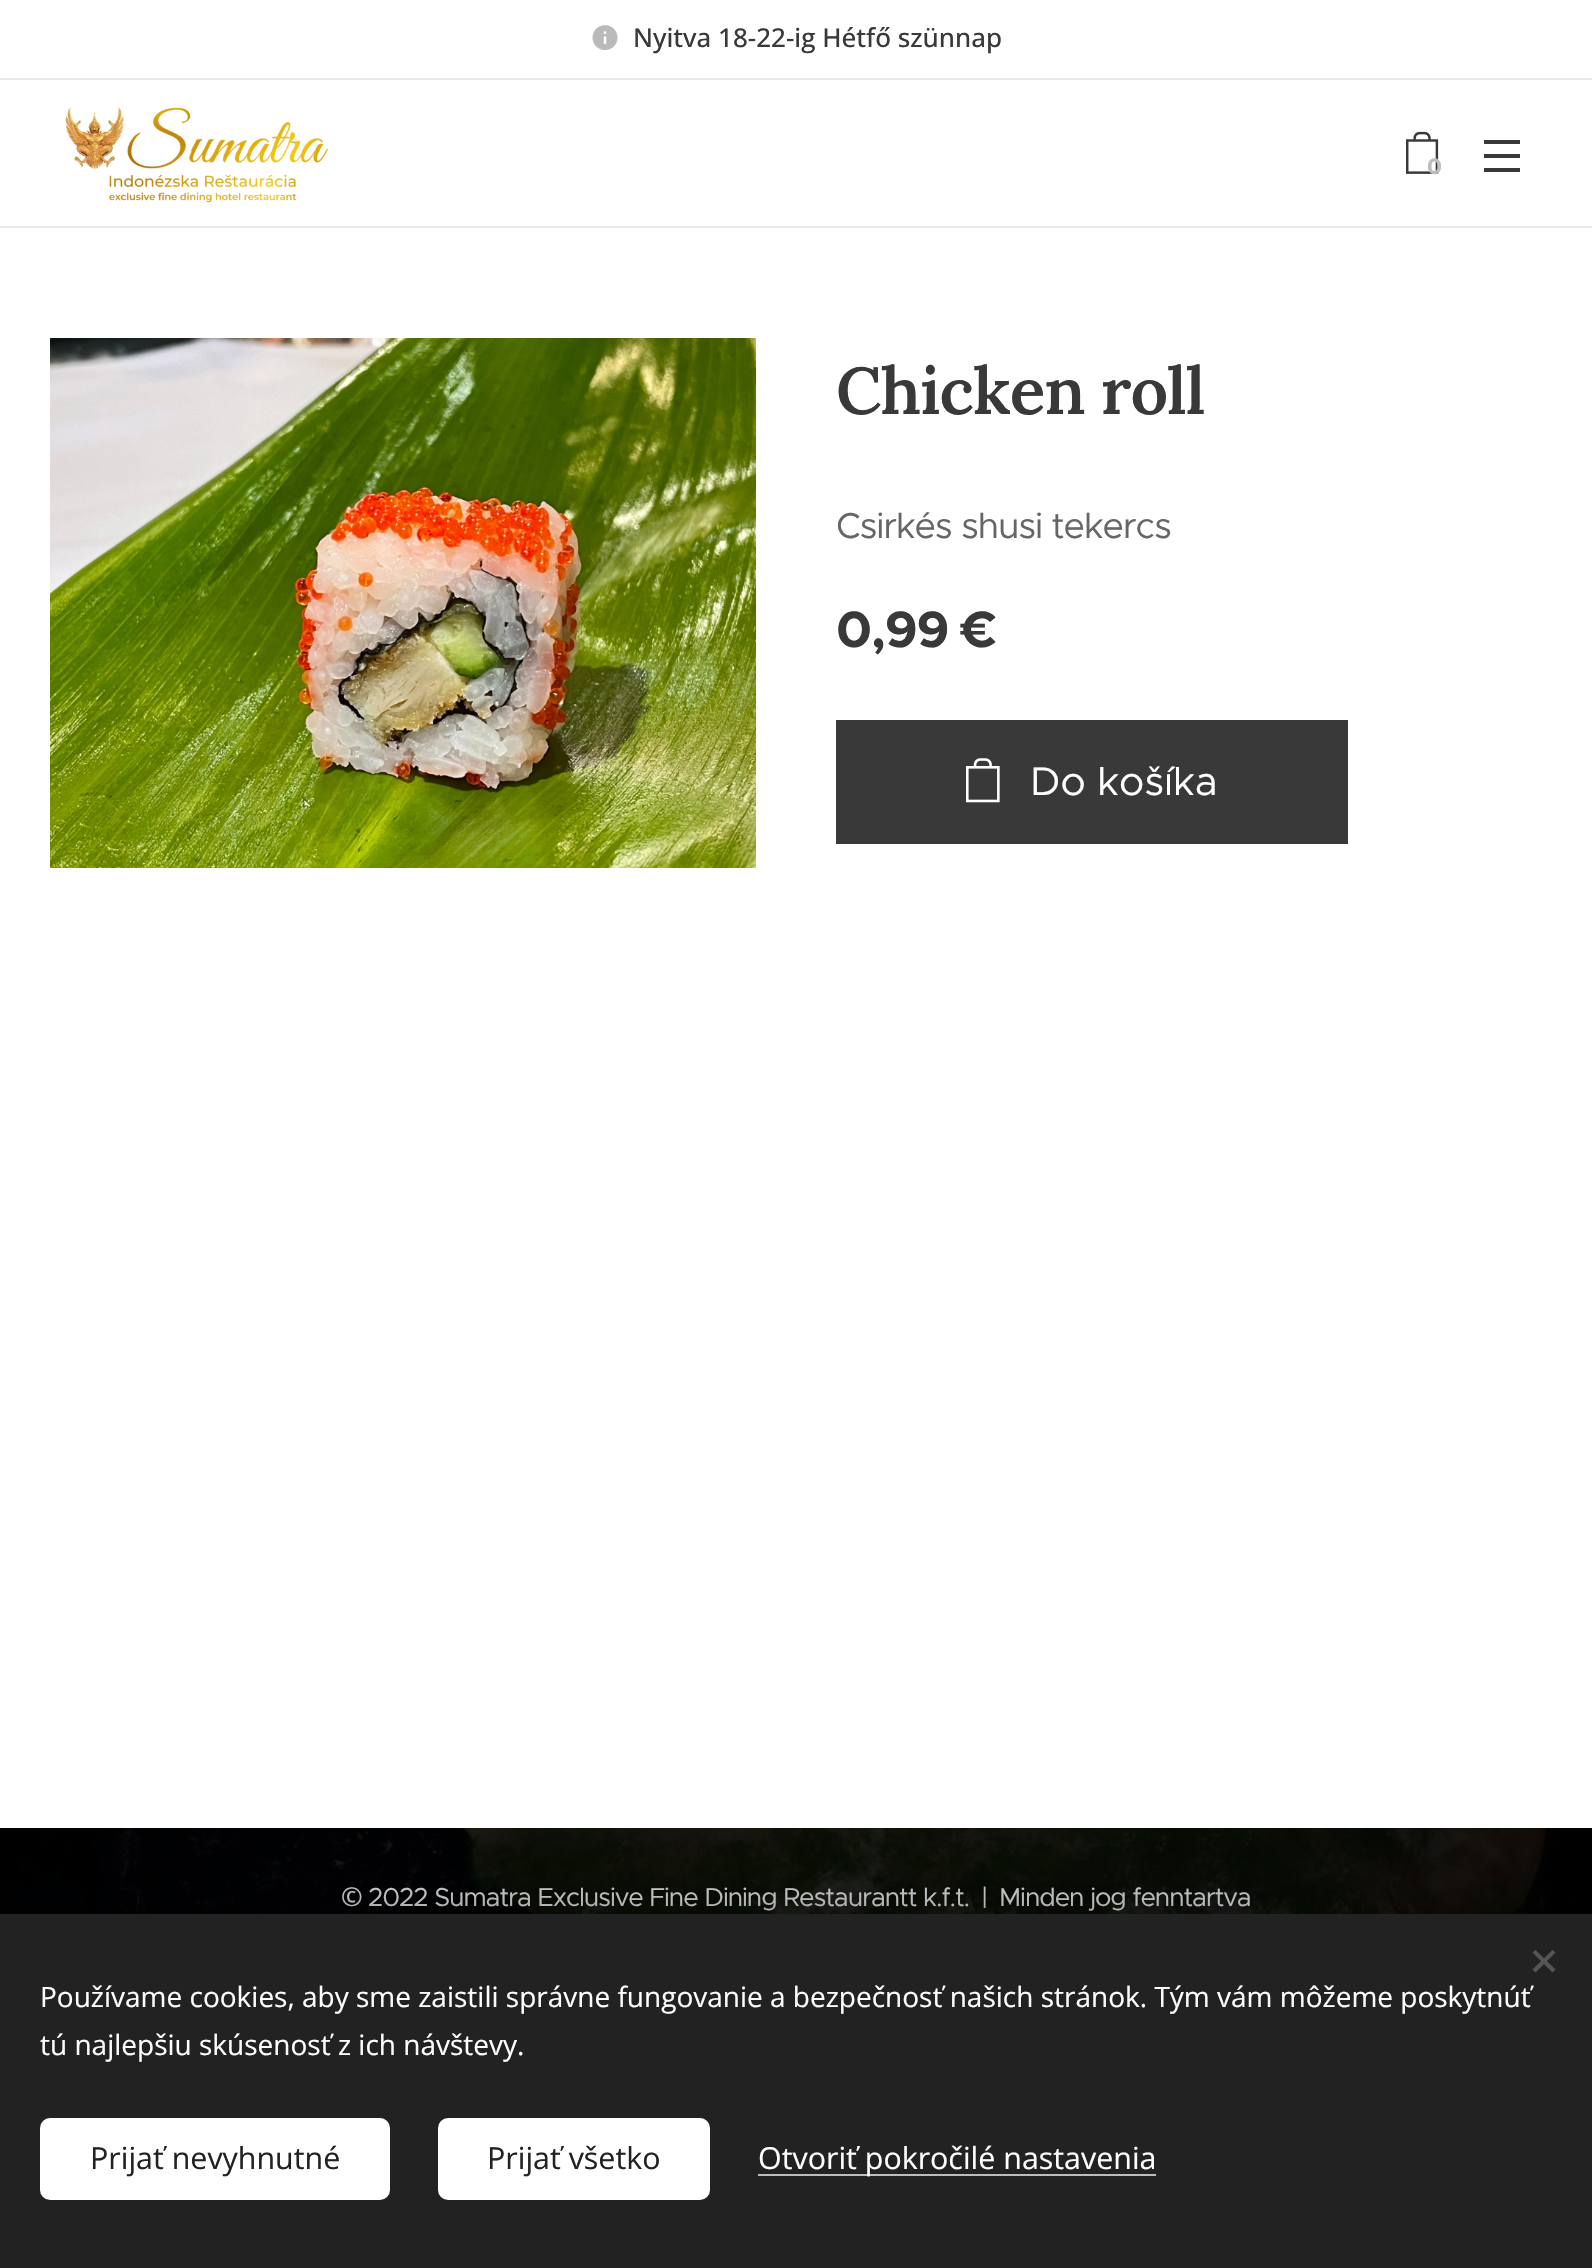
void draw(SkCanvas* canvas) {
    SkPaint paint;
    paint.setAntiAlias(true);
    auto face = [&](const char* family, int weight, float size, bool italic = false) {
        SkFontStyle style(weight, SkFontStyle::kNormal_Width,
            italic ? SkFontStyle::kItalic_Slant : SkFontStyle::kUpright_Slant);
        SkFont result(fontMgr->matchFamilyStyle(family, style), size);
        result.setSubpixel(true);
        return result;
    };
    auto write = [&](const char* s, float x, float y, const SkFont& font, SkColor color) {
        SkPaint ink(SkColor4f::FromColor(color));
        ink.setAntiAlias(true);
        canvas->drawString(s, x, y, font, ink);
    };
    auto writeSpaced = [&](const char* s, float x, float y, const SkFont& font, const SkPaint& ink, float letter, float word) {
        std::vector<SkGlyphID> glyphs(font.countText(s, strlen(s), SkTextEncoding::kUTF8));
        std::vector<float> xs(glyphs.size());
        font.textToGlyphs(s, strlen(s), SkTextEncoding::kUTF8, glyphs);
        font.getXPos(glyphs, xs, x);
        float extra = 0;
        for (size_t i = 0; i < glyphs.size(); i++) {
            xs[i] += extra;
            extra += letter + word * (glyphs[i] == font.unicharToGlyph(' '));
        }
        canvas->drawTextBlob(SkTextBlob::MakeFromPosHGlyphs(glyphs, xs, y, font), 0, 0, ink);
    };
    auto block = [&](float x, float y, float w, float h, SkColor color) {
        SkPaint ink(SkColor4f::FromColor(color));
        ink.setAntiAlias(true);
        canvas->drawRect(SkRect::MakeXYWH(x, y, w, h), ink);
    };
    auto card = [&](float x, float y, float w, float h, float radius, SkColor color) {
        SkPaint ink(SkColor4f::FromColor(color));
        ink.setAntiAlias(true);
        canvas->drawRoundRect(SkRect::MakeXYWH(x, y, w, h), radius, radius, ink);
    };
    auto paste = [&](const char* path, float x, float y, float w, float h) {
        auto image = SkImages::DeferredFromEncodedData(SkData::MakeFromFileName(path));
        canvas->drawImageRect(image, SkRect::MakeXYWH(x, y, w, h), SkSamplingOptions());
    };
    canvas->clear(SK_ColorWHITE);
    paste("pic1.png", 592, 25, 26, 26);
    auto kFont1 = face("Open Sans", 500, 26);
    write("Nyitva 18-22-ig Hétfő szünnap", 633, 47, kFont1, SkColorSetRGB(57, 57, 57));
    block(0, 78, 1592, 2, SkColorSetRGB(232, 232, 232));
    paste("pic2.png", 65, 107, 263, 96);
    paste("pic3.png", 1406, 131, 33, 43);
    auto kFont2 = face("Montserrat", 700, 22);
    write("0", 1427, 174, kFont2, SkColorSetRGB(191, 191, 191));
    block(1484, 154, 36, 4, SkColorSetRGB(57, 57, 57));
    block(1484, 140, 36, 4, SkColorSetRGB(57, 57, 57));
    block(1484, 168, 36, 4, SkColorSetRGB(57, 57, 57));
    block(0, 226, 1592, 2, SkColorSetRGB(232, 232, 232));
    paste("pic4.png", 50, 338, 706, 530);
    auto kFont3 = face("Lora", 600, 66);
    paint.setColor(SkColorSetRGB(57, 57, 57));
    writeSpaced("Chicken roll", 836, 414, kFont3, paint, -1.08f, 0);
    auto kFont4 = face("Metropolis", 400, 36);
    paint.setColor(SkColorSetRGB(102, 102, 102));
    writeSpaced("Csirkés shusi tekercs", 836, 538, kFont4, paint, -1.08f, 0);
    auto kFont5 = face("Metropolis", 700, 51);
    paint.setColor(SkColorSetRGB(57, 57, 57));
    writeSpaced("0,99 €", 836, 647, kFont5, paint, -1.08f, 0);
    block(836, 720, 512, 124, SkColorSetRGB(57, 57, 57));
    paste("pic5.png", 966, 758, 34, 45);
    auto kFont6 = face("Metropolis", 400, 40);
    write("Do košíka", 1030, 795, kFont6, SK_ColorWHITE);
    paste("pic6.png", 0, 1828, 1592, 86);
    auto kFont7 = face("Noto Sans", 400, 26);
    paint.setColor(SkColorSetRGB(204, 204, 205));
    writeSpaced("©", 341, 1906, kFont7, paint, -1.08f, 0);
    auto kFont8 = face("Metropolis", 400, 26);
    writeSpaced("2022 Sumatra Exclusive Fine Dining Restaurantt k.f.t.", 368, 1906, kFont8, paint, -1.08f, 0.25f);
    writeSpaced("|", 981, 1906, kFont8, paint, -1.08f, 0);
    writeSpaced("Minden jog fenntartva", 999, 1906, kFont8, paint, -1.08f, 0.25f);
    paint.setColor(SkColorSetARGB(84, 0, 0, 0));
    paint.setMaskFilter(SkMaskFilter::MakeBlur(kNormal_SkBlurStyle, 25));
    canvas->drawRect(SkRect::MakeXYWH(0, 1914, 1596, 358), paint);
    paint.setMaskFilter(nullptr);
    block(0, 1914, 1592, 354, SkColorSetRGB(34, 34, 34));
    paint.setColor(SkColorSetRGB(85, 85, 85));
    canvas->drawPath(SkPathBuilder().moveTo(1532.5f, 1969.5f).lineTo(1552.5f, 1950).lineTo(1555.5f, 1952.5f).lineTo(1535.5f, 1972.5f).close().detach(), paint);
    canvas->drawPath(SkPathBuilder().moveTo(1535.5f, 1950).lineTo(1555.5f, 1969.5f).lineTo(1552.5f, 1972.5f).lineTo(1532.5f, 1952.5f).close().detach(), paint);
    auto kFont9 = face("Open Sans", 400, 28);
    write("Používame cookies, aby sme zaistili správne fungovanie a bezpečnosť našich stránok. Tým vám môžeme poskytnúť", 40, 2007, kFont9, SK_ColorWHITE);
    write("tú najlepšiu skúsenosť z ich návštevy.", 40, 2055, kFont9, SK_ColorWHITE);
    card(40, 2118, 350, 82, 10, SK_ColorWHITE);
    auto kFont10 = face("Open Sans", 400, 30.4f);
    write("Prijať nevyhnutné", 90, 2169, kFont10, SkColorSetRGB(34, 34, 34));
    card(438, 2118, 272, 82, 10, SK_ColorWHITE);
    write("Prijať všetko", 487, 2169, kFont10, SkColorSetRGB(34, 34, 34));
    block(758, 2174, 398, 2, SkColorSetRGB(189, 189, 189));
    write("Otvoriť pokročilé nastavenia", 758, 2169, kFont10, SK_ColorWHITE);
}
